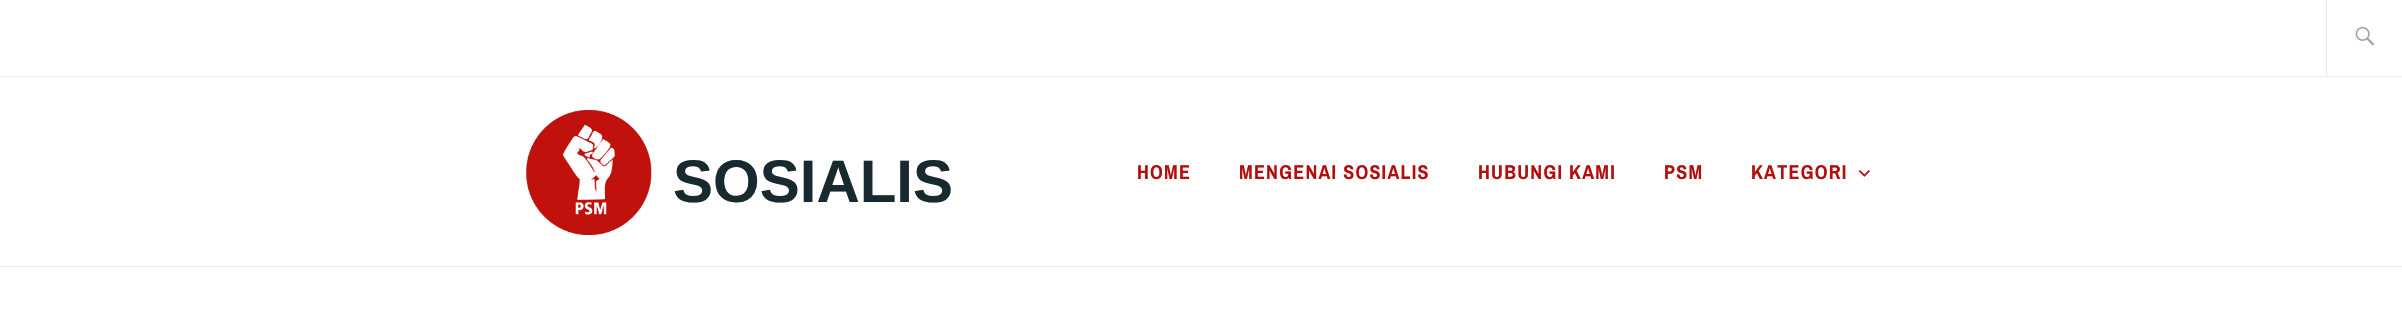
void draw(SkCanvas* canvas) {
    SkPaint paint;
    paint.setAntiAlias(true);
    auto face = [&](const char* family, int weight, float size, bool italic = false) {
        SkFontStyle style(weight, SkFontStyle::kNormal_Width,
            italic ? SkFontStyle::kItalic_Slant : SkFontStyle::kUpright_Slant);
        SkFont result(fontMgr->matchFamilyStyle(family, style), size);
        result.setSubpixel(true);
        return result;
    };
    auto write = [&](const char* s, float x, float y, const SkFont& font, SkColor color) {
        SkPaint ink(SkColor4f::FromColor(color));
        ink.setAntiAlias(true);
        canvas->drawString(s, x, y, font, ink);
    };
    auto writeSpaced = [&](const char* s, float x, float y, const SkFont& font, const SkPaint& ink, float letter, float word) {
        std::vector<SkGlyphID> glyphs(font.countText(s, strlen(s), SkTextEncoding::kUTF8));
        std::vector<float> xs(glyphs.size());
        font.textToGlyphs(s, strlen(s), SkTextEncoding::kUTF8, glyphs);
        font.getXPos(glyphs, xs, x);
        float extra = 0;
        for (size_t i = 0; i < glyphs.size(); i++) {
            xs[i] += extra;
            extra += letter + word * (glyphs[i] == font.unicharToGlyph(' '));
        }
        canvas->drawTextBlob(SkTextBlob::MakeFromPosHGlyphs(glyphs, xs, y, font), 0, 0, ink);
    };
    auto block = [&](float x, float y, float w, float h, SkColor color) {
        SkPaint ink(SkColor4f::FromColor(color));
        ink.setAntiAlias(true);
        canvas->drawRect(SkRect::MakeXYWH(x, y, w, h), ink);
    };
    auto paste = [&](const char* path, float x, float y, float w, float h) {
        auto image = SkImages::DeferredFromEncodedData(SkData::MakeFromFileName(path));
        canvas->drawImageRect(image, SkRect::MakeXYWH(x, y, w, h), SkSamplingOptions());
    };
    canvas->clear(SK_ColorWHITE);
    block(0, 266, 2402, 1, SkColorSetRGB(238, 236, 232));
    block(0, 76, 2402, 1, SkColorSetRGB(238, 236, 232));
    block(2326, 0, 1, 76, SkColorSetRGB(238, 236, 232));
    paste("pic1.png", 2355, 26, 20, 20);
    paste("pic2.png", 526, 110, 126, 125);
    auto kFont1 = face("Liberation Sans", 700, 60);
    write("SOSIALIS", 673, 202, kFont1, SkColorSetRGB(25, 41, 48));
    auto kFont2 = face("Archivo Narrow", 700, 20);
    paint.setColor(SkColorSetRGB(181, 12, 12));
    writeSpaced("HOME", 1137, 179, kFont2, paint, 1.25f, 0);
    writeSpaced("MENGENAI SOSIALIS", 1239, 179, kFont2, paint, 1.25f, 0);
    writeSpaced("HUBUNGI KAMI", 1478, 179, kFont2, paint, 1.25f, 0);
    writeSpaced("PSM", 1664, 179, kFont2, paint, 1.25f, 0);
    writeSpaced("KATEGORI", 1751, 179, kFont2, paint, 1.25f, 0);
    paste("pic3.png", 1858, 170, 12, 7);
}
